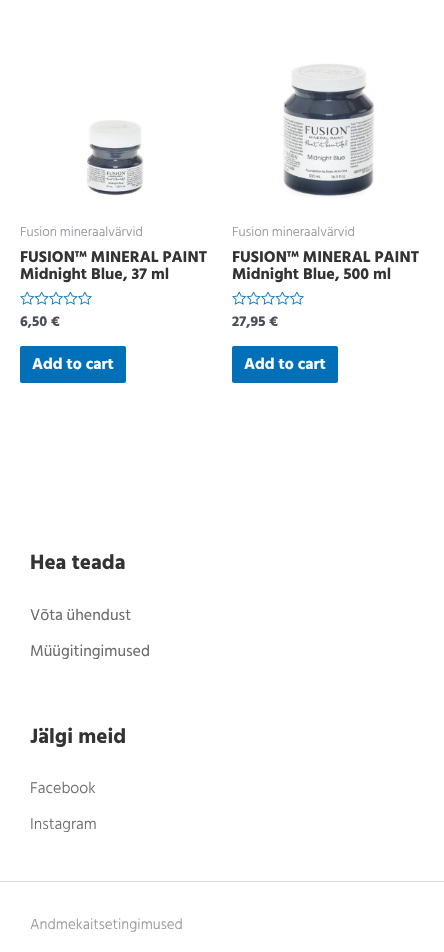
void draw(SkCanvas* canvas) {
    SkPaint paint;
    paint.setAntiAlias(true);
    auto face = [&](const char* family, int weight, float size, bool italic = false) {
        SkFontStyle style(weight, SkFontStyle::kNormal_Width,
            italic ? SkFontStyle::kItalic_Slant : SkFontStyle::kUpright_Slant);
        SkFont result(fontMgr->matchFamilyStyle(family, style), size);
        result.setSubpixel(true);
        return result;
    };
    auto write = [&](const char* s, float x, float y, const SkFont& font, SkColor color) {
        SkPaint ink(SkColor4f::FromColor(color));
        ink.setAntiAlias(true);
        canvas->drawString(s, x, y, font, ink);
    };
    auto block = [&](float x, float y, float w, float h, SkColor color) {
        SkPaint ink(SkColor4f::FromColor(color));
        ink.setAntiAlias(true);
        canvas->drawRect(SkRect::MakeXYWH(x, y, w, h), ink);
    };
    auto card = [&](float x, float y, float w, float h, float radius, SkColor color) {
        SkPaint ink(SkColor4f::FromColor(color));
        ink.setAntiAlias(true);
        canvas->drawRoundRect(SkRect::MakeXYWH(x, y, w, h), radius, radius, ink);
    };
    auto paste = [&](const char* path, float x, float y, float w, float h) {
        auto image = SkImages::DeferredFromEncodedData(SkData::MakeFromFileName(path));
        canvas->drawImageRect(image, SkRect::MakeXYWH(x, y, w, h), SkSamplingOptions());
    };
    canvas->clear(SK_ColorWHITE);
    paste("pic1.png", 86, 120, 58, 76);
    auto kFont1 = face("Hind Siliguri", 300, 13.5f);
    write("Fusion mineraalvärvid", 20, 236, kFont1, SkColorSetRGB(147, 149, 155));
    auto kFont2 = face("Hind Siliguri", 700, 16);
    write("FUSION™ MINERAL PAINT", 20, 262, kFont2, SkColorSetRGB(51, 51, 51));
    write("Midnight Blue, 37 ml", 20, 279, kFont2, SkColorSetRGB(51, 51, 51));
    paste("pic2.png", 20, 292, 72, 13);
    auto kFont3 = face("Hind Siliguri", 700, 14.5f);
    write("6,50 €", 20, 326, kFont3, SkColorSetRGB(75, 79, 88));
    card(20, 346, 106, 37, 2, SkColorSetRGB(1, 112, 185));
    write("Add to cart", 32, 369, kFont2, SK_ColorWHITE);
    paste("pic3.png", 283, 63, 92, 136);
    write("Fusion mineraalvärvid", 232, 236, kFont1, SkColorSetRGB(147, 149, 155));
    write("FUSION™ MINERAL PAINT", 232, 262, kFont2, SkColorSetRGB(51, 51, 51));
    write("Midnight Blue, 500 ml", 232, 279, kFont2, SkColorSetRGB(51, 51, 51));
    paste("pic2.png", 232, 292, 72, 13);
    write("27,95 €", 232, 326, kFont3, SkColorSetRGB(75, 79, 88));
    card(232, 346, 106, 37, 2, SkColorSetRGB(1, 112, 185));
    write("Add to cart", 244, 369, kFont2, SK_ColorWHITE);
    auto kFont4 = face("Hind Siliguri", 700, 21);
    write("Hea teada", 30, 569, kFont4, SkColorSetRGB(51, 51, 51));
    auto kFont5 = face("Hind Siliguri", 400, 16);
    write("Võta ühendust", 30, 620, kFont5, SkColorSetRGB(107, 107, 107));
    write("Müügitingimused", 30, 656, kFont5, SkColorSetRGB(107, 107, 107));
    write("Jälgi meid", 30, 743, kFont4, SkColorSetRGB(51, 51, 51));
    auto kFont6 = face("Hind Siliguri", 300, 16);
    write("Facebook", 30, 793, kFont6, SkColorSetRGB(107, 107, 107));
    write("Instagram", 30, 829, kFont6, SkColorSetRGB(107, 107, 107));
    block(0, 881, 444, 1, SkColorSetRGB(222, 222, 222));
    auto kFont7 = face("Hind Siliguri", 300, 15);
    write("Andmekaitsetingimused", 30, 929, kFont7, SkColorSetRGB(153, 153, 153));
}
